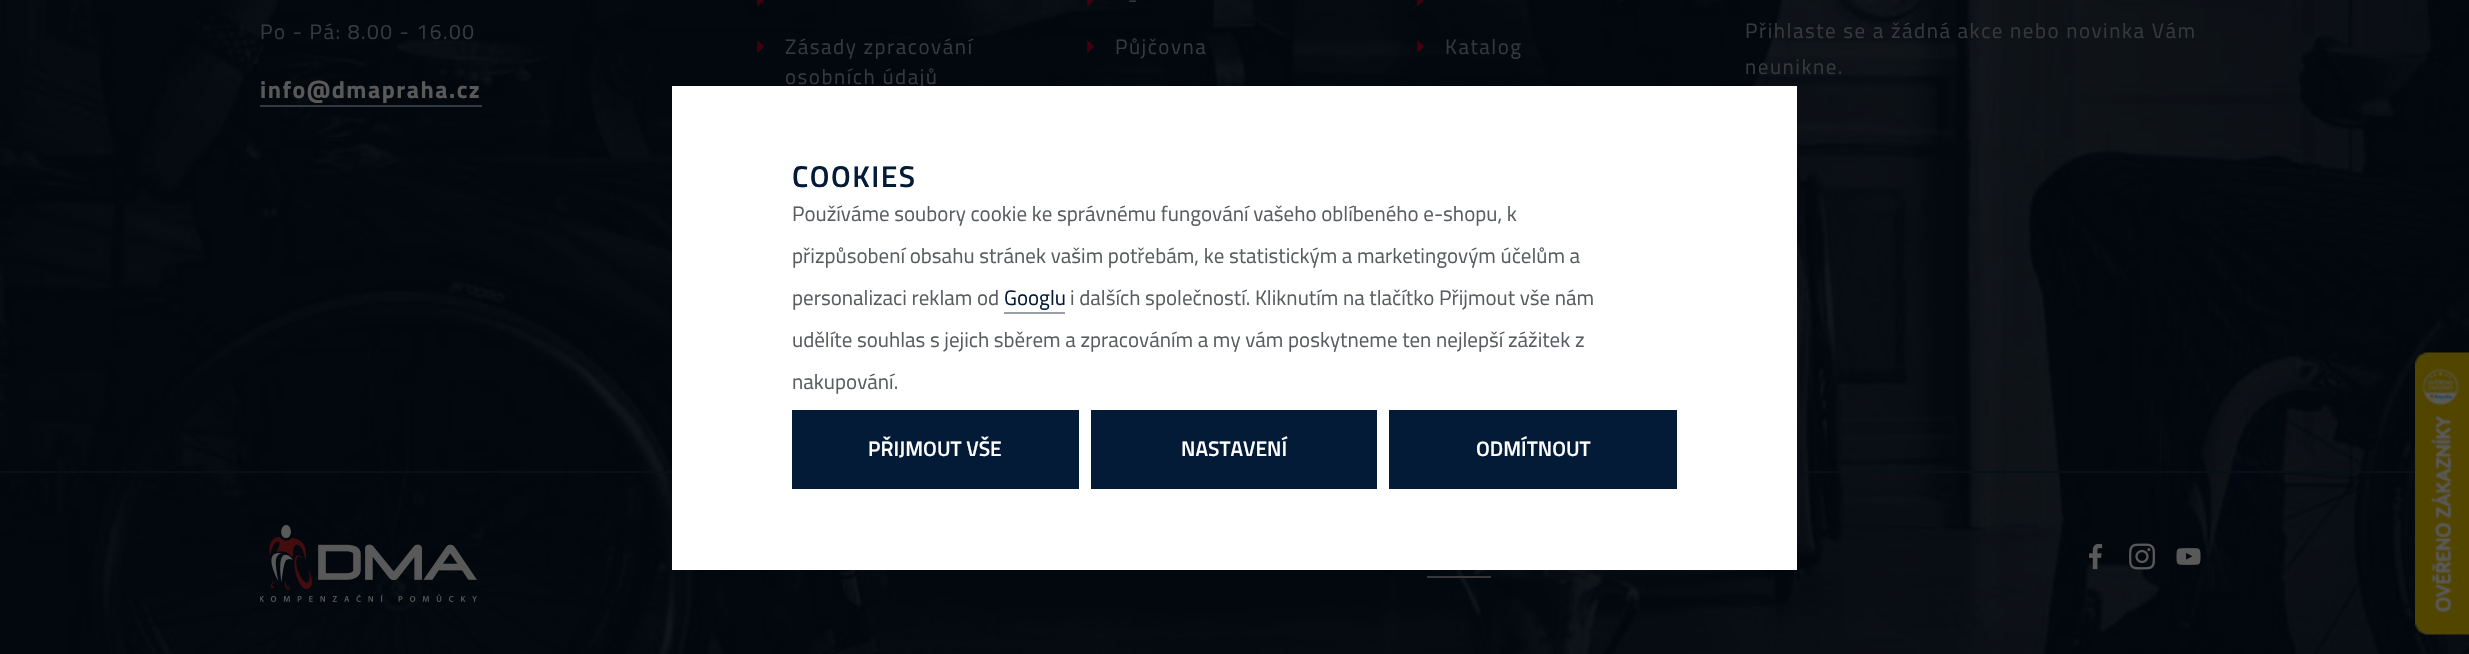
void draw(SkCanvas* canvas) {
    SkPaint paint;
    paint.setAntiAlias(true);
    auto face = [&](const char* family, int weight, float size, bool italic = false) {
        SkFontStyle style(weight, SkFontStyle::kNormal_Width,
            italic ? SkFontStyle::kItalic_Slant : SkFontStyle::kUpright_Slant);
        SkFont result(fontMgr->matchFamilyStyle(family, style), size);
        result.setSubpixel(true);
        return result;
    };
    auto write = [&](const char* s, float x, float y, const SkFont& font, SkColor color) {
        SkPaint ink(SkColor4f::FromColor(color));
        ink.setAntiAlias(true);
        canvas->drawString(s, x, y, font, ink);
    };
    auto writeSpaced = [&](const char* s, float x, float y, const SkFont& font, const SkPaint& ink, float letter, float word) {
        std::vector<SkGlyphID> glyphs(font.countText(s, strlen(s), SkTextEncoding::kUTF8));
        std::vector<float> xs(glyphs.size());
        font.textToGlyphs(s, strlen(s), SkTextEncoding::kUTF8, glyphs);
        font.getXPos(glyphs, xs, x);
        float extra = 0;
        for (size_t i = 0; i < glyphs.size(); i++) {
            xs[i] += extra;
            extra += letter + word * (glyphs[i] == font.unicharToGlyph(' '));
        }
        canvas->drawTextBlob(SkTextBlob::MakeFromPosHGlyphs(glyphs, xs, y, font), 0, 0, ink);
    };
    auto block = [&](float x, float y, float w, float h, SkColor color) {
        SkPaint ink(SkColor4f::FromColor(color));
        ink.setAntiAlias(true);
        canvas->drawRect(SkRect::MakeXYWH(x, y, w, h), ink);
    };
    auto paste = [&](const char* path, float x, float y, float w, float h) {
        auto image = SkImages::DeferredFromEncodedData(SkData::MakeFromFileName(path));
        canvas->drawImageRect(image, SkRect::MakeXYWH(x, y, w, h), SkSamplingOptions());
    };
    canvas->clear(SK_ColorWHITE);
    paste("pic1.png", 0, 0, 2469, 654);
    auto kFont1 = face("Titillium Web", 400, 21);
    paint.setColor(SkColorSetRGB(54, 57, 60));
    writeSpaced("Po - Pá: 8.00 - 16.00", 260, 39, kFont1, paint, 1.5f, 0);
    auto kFont2 = face("Titillium Web", 700, 24);
    paint.setColor(SkColorSetRGB(89, 89, 89));
    writeSpaced("info@dmapraha.cz", 260, 98, kFont2, paint, 1.5f, 0);
    block(260, 105, 222, 2, SkColorSetRGB(54, 56, 59));
    paste("pic2.png", 757, 0, 7, 6);
    paste("pic3.png", 757, 40, 7, 13);
    paint.setColor(SkColorSetRGB(54, 57, 60));
    writeSpaced("Zásady zpracování", 785, 54, kFont1, paint, 1.5f, 0);
    writeSpaced("osobních údajů", 785, 84, kFont1, paint, 1.5f, 0);
    paste("pic4.png", 1087, 0, 7, 6);
    writeSpaced("-", 1128, 7, kFont1, paint, 1.5f, 0);
    paste("pic5.png", 1087, 40, 7, 13);
    writeSpaced("Půjčovna", 1115, 54, kFont1, paint, 1.5f, 0);
    paste("pic6.png", 1417, 0, 7, 6);
    paste("pic7.png", 1417, 40, 7, 13);
    writeSpaced("Katalog", 1445, 54, kFont1, paint, 1.5f, 0);
    writeSpaced("Přihlaste se a žádná akce nebo novinka Vám", 1745, 38, kFont1, paint, 1.5f, 0);
    writeSpaced("neunikne.", 1745, 74, kFont1, paint, 1.5f, 0);
    block(0, 471, 2415, 2, SkColorSetRGB(7, 15, 23));
    paste("pic8.png", 260, 525, 217, 77);
    paste("pic9.png", 2089, 543, 14, 27);
    paste("pic10.png", 2129, 543, 26, 27);
    paste("pic11.png", 2176, 548, 25, 17);
    block(1427, 576, 64, 2, SkColorSetRGB(54, 56, 59));
    block(672, 86, 1125, 484, SK_ColorWHITE);
    auto kFont3 = face("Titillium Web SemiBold", 600, 30);
    paint.setColor(SkColorSetRGB(3, 27, 54));
    writeSpaced("COOKIES", 792, 187, kFont3, paint, 1.5f, 0);
    write("Používáme soubory cookie ke správnému fungování vašeho oblíbeného e-shopu, k", 792, 221, kFont1, SkColorSetRGB(89, 93, 97));
    write("přizpůsobení obsahu stránek vašim potřebám, ke statistickým a marketingovým účelům a", 792, 263, kFont1, SkColorSetRGB(89, 93, 97));
    write("personalizaci reklam od", 792, 305, kFont1, SkColorSetRGB(89, 93, 97));
    write("Googlu", 1004, 305, kFont1, SkColorSetRGB(3, 27, 54));
    block(1004, 312, 61, 2, SkColorSetRGB(153, 160, 168));
    write("i dalších společností. Kliknutím na tlačítko Přijmout vše nám", 1070, 305, kFont1, SkColorSetRGB(89, 93, 97));
    write("udělíte souhlas s jejich sběrem a zpracováním a my vám poskytneme ten nejlepší zážitek z", 792, 347, kFont1, SkColorSetRGB(89, 93, 97));
    write("nakupování.", 792, 389, kFont1, SkColorSetRGB(89, 93, 97));
    block(792, 410, 287, 79, SkColorSetRGB(3, 27, 54));
    auto kFont4 = face("Titillium Web SemiBold", 600, 21);
    write("PŘIJMOUT VŠE", 868, 456, kFont4, SK_ColorWHITE);
    block(1091, 410, 286, 79, SkColorSetRGB(3, 27, 54));
    write("NASTAVENÍ", 1181, 456, kFont4, SK_ColorWHITE);
    block(1389, 410, 288, 79, SkColorSetRGB(3, 27, 54));
    write("ODMÍTNOUT", 1476, 456, kFont4, SK_ColorWHITE);
    paste("pic12.png", 2415, 352, 54, 283);
}
